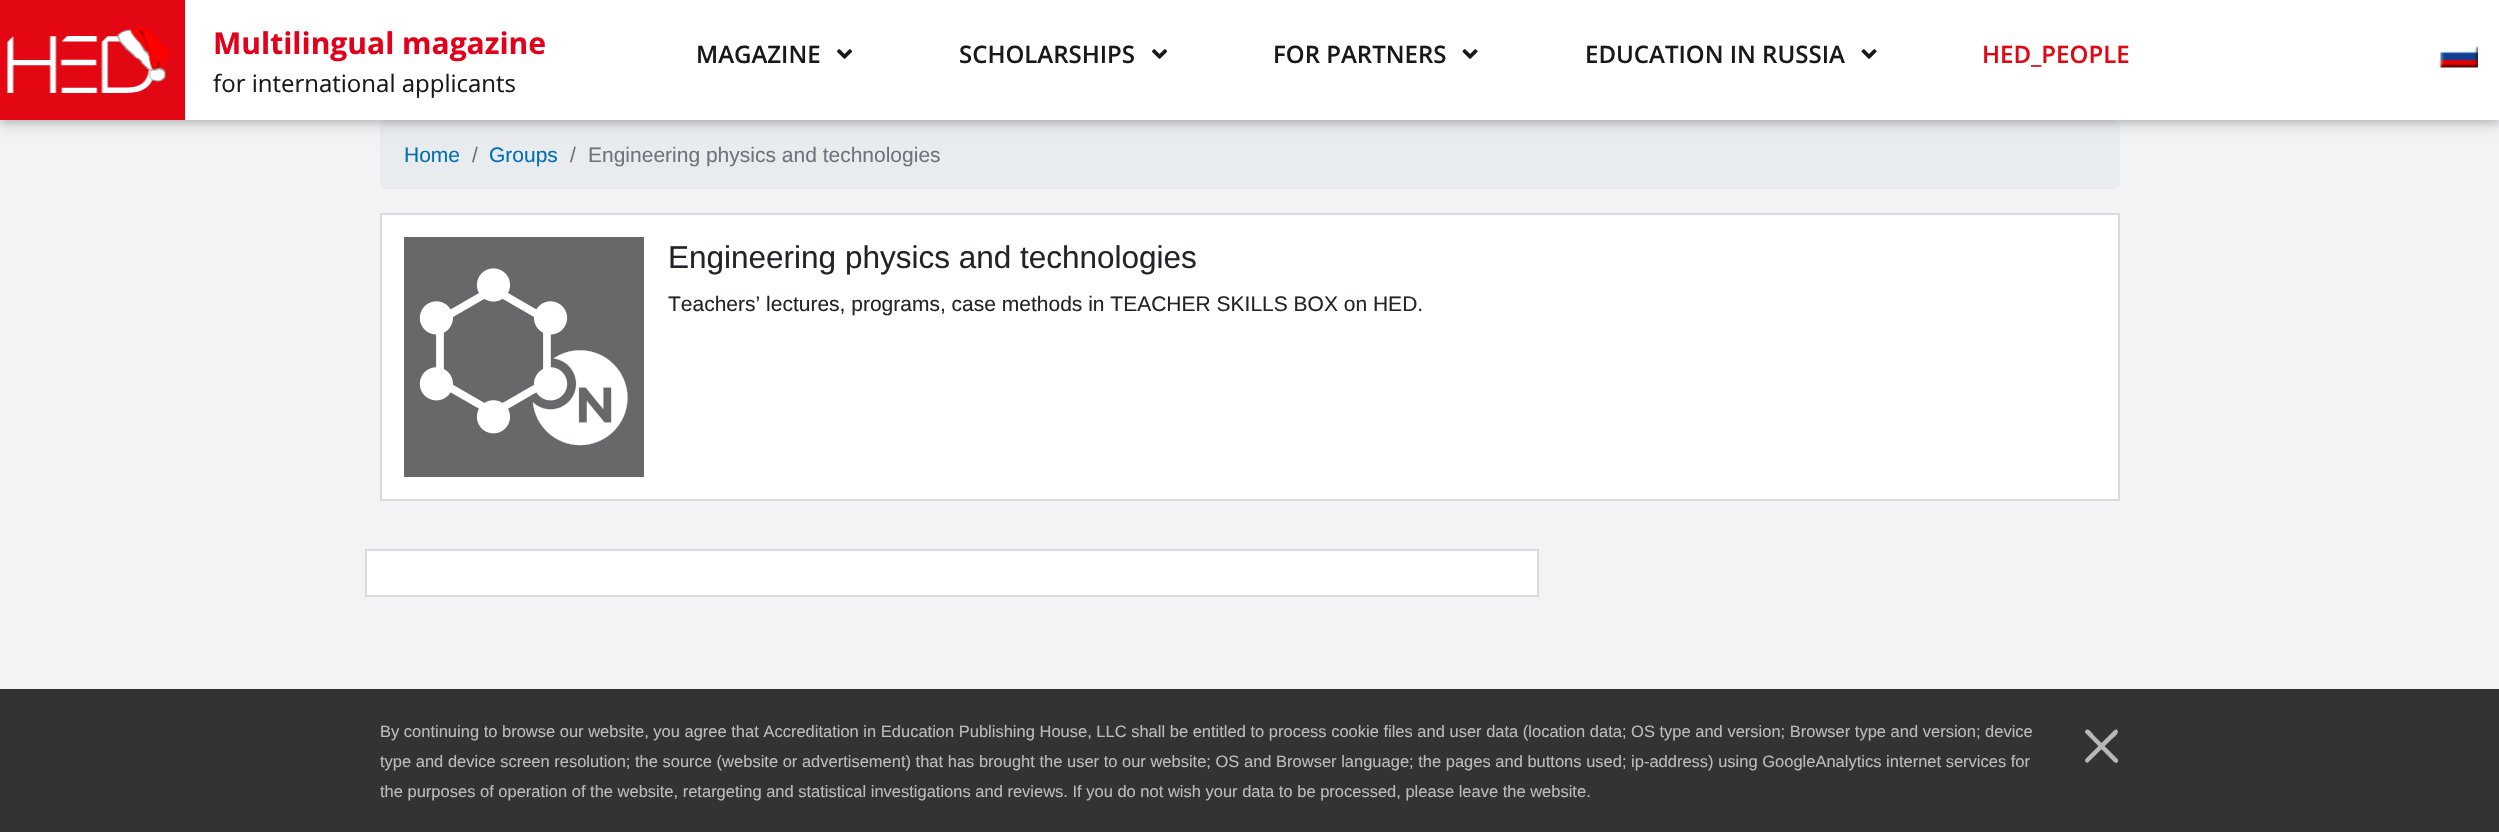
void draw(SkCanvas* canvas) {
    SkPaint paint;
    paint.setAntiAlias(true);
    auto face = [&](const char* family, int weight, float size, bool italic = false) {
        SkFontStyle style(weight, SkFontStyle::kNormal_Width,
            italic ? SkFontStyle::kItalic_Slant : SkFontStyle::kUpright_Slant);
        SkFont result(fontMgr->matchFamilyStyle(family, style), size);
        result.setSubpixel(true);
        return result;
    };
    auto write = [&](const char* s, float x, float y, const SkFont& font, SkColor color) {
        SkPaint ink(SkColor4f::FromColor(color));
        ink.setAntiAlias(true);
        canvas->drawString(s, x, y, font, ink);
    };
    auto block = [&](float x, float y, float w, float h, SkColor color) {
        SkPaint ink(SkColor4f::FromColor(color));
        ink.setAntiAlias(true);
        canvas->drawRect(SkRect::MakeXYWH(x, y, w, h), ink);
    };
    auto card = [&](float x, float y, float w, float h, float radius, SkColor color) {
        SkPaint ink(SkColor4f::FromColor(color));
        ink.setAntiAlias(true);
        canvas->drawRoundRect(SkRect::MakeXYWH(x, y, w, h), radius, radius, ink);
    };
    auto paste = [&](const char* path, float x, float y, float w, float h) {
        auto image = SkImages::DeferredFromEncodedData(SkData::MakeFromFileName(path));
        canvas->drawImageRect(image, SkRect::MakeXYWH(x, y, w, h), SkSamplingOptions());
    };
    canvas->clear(SkColorSetRGB(243, 243, 245));
    card(380, 120, 1740, 69, 6, SkColorSetRGB(233, 236, 239));
    paint.setColor(SkColorSetARGB(31, 0, 0, 0));
    paint.setMaskFilter(SkMaskFilter::MakeBlur(kNormal_SkBlurStyle, 7.5f));
    canvas->drawRect(SkRect::MakeXYWH(0, 3, 2499, 120), paint);
    paint.setMaskFilter(nullptr);
    paint.setColor(SkColorSetARGB(41, 0, 0, 0));
    paint.setMaskFilter(SkMaskFilter::MakeBlur(kNormal_SkBlurStyle, 4));
    canvas->drawRect(SkRect::MakeXYWH(0, 3, 2499, 120), paint);
    paint.setMaskFilter(nullptr);
    block(185, 0, 2314, 120, SK_ColorWHITE);
    block(0, 0, 185, 120, SkColorSetRGB(227, 6, 19));
    paste("pic1.png", 7, 27, 163, 66);
    auto kFont1 = face("Open Sans", 700, 30);
    write("Multilingual magazine", 213, 54, kFont1, SkColorSetRGB(226, 0, 26));
    auto kFont2 = face("Open Sans", 400, 24);
    write("for international applicants", 213, 92, kFont2, SkColorSetRGB(25, 25, 25));
    paste("pic2.png", 2440, 46, 38, 22);
    auto kFont3 = face("Open Sans", 600, 24);
    write("MAGAZINE", 696, 63, kFont3, SkColorSetRGB(25, 25, 25));
    paste("pic3.png", 837, 49, 15, 10);
    write("SCHOLARSHIPS", 959, 63, kFont3, SkColorSetRGB(25, 25, 25));
    paste("pic3.png", 1152, 49, 15, 10);
    write("FOR PARTNERS", 1273, 63, kFont3, SkColorSetRGB(25, 25, 25));
    paste("pic4.png", 1462, 49, 16, 10);
    write("EDUCATION IN RUSSIA", 1585, 63, kFont3, SkColorSetRGB(25, 25, 25));
    paste("pic4.png", 1861, 49, 16, 10);
    write("HED_PEOPLE", 1982, 63, kFont3, SkColorSetRGB(227, 6, 19));
    auto kFont4 = face("Liberation Sans", 400, 21);
    write("Home", 404, 162, kFont4, SkColorSetRGB(0, 111, 180));
    write("/", 472, 162, kFont4, SkColorSetRGB(108, 117, 125));
    write("Groups", 489, 162, kFont4, SkColorSetRGB(0, 111, 180));
    write("/", 570, 162, kFont4, SkColorSetRGB(108, 117, 125));
    write("Engineering physics and technologies", 588, 162, kFont4, SkColorSetRGB(108, 117, 125));
    paint.setColor(SK_ColorWHITE);
    canvas->drawRect(SkRect::MakeXYWH(381, 214, 1738, 286), paint);
    paint.setStyle(SkPaint::kStroke_Style);
    paint.setStrokeWidth(2);
    paint.setColor(SkColorSetRGB(217, 218, 218));
    canvas->drawRect(SkRect::MakeXYWH(381, 214, 1738, 286), paint);
    paste("pic5.png", 404, 237, 240, 240);
    auto kFont5 = face("Liberation Sans", 400, 31.5f);
    write("Engineering physics and technologies", 668, 268, kFont5, SkColorSetRGB(33, 37, 41));
    write("Teachers’ lectures, programs, case methods in TEACHER SKILLS BOX on HED.", 668, 311, kFont4, SkColorSetRGB(33, 37, 41));
    paint.setStyle(SkPaint::kFill_Style);
    paint.setColor(SK_ColorWHITE);
    canvas->drawRect(SkRect::MakeXYWH(366, 550, 1172, 46), paint);
    paint.setStyle(SkPaint::kStroke_Style);
    paint.setColor(SkColorSetRGB(217, 218, 218));
    canvas->drawRect(SkRect::MakeXYWH(366, 550, 1172, 46), paint);
    block(0, 689, 2499, 143, SkColorSetRGB(51, 51, 51));
    auto kFont6 = face("Liberation Sans", 400, 16.5f);
    write("By continuing to browse our website, you agree that Accreditation in Education Publishing House, LLC shall be entitled to process cookie files and user data (location data; OS type and version; Browser type and version; device", 380, 737, kFont6, SkColorSetRGB(188, 188, 188));
    paint.setStyle(SkPaint::kFill_Style);
    paint.setColor(SkColorSetRGB(184, 184, 184));
    canvas->drawPath(SkPathBuilder().moveTo(2085.5f, 759).lineTo(2114.5f, 730).lineTo(2116, 729.5f).cubicTo(2116.5f, 729.5f, 2117.5f, 730, 2117.5f, 730.5f).cubicTo(2119.5f, 733.5f, 2113, 738, 2112.5f, 738.5f).lineTo(2088, 762.5f).cubicTo(2086.5f, 763, 2085, 762, 2085, 760.5f).close().detach(), paint);
    canvas->drawPath(SkPathBuilder().moveTo(2114, 762).lineTo(2085.5f, 733).lineTo(2085, 732).cubicTo(2085, 731, 2085.5f, 730.5f, 2086, 730).cubicTo(2089, 728, 2093, 734.5f, 2093.5f, 735).lineTo(2118, 759.5f).cubicTo(2118.5f, 761, 2117.5f, 763, 2116, 763).close().detach(), paint);
    write("type and device screen resolution; the source (website or advertisement) that has brought the user to our website; OS and Browser language; the pages and buttons used; ip-address) using GoogleAnalytics internet services for", 380, 767, kFont6, SkColorSetRGB(188, 188, 188));
    write("the purposes of operation of the website, retargeting and statistical investigations and reviews. If you do not wish your data to be processed, please leave the website.", 380, 797, kFont6, SkColorSetRGB(188, 188, 188));
}
